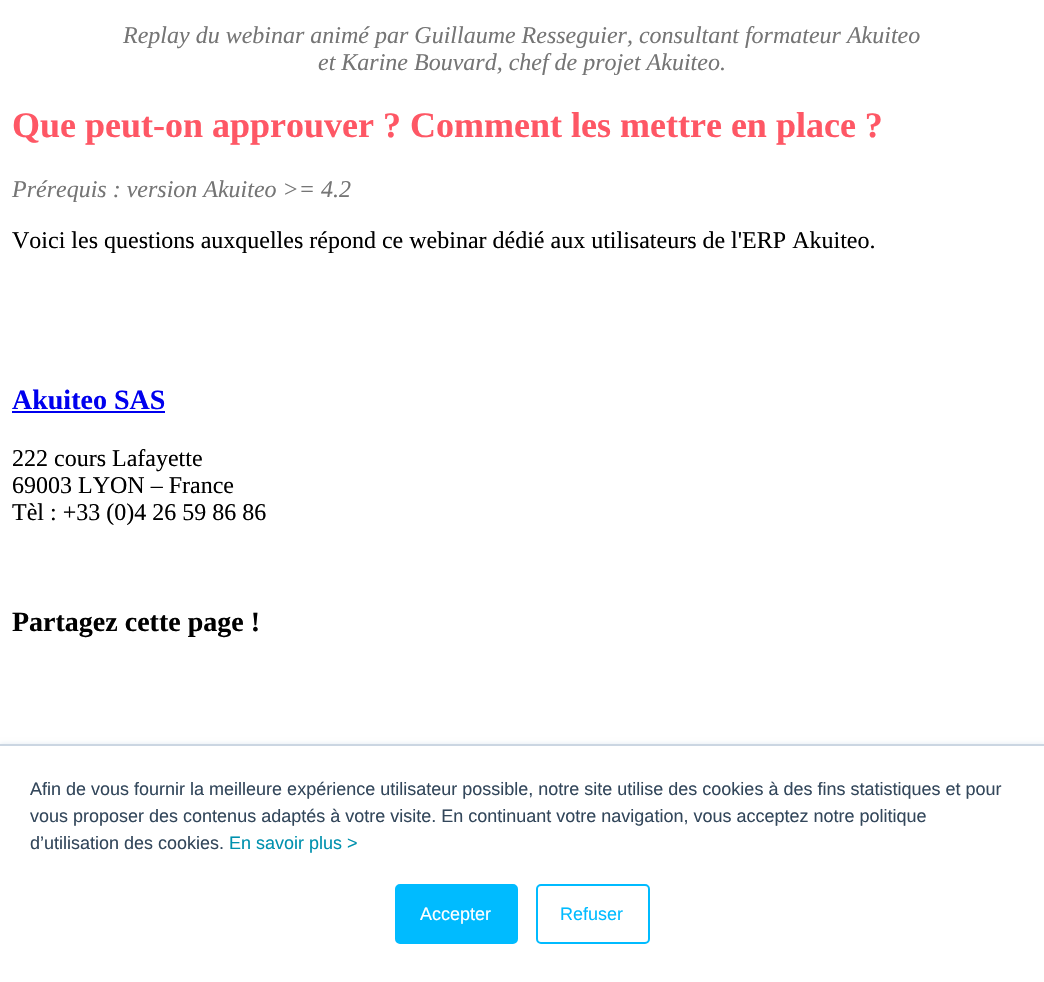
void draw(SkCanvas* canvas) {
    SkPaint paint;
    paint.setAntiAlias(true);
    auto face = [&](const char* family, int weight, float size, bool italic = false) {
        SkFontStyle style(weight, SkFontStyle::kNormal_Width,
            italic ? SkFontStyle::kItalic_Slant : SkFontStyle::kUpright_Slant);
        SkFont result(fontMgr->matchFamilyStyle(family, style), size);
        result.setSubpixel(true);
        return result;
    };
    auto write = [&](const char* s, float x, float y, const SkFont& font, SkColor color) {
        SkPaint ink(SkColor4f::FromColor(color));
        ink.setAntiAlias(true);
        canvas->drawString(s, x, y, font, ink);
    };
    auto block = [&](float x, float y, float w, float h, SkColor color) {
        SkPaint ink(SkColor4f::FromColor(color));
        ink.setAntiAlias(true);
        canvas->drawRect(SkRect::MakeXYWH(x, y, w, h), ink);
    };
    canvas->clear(SK_ColorWHITE);
    auto kFont1 = face("Liberation Serif", 400, 24, true);
    write("Replay du webinar animé par Guillaume Resseguier, consultant formateur Akuiteo", 123, 43, kFont1, SkColorSetRGB(117, 117, 117));
    write("et Karine Bouvard, chef de projet Akuiteo.", 318, 70, kFont1, SkColorSetRGB(117, 117, 117));
    auto kFont2 = face("Liberation Serif", 700, 36);
    write("Que peut-on approuver ? Comment les mettre en place ?", 12, 137, kFont2, SkColorSetRGB(254, 87, 101));
    write("Prérequis : version Akuiteo >= 4.2", 12, 197, kFont1, SkColorSetRGB(117, 117, 117));
    auto kFont3 = face("Liberation Serif", 400, 24);
    write("Voici les questions auxquelles répond ce webinar dédié aux utilisateurs de l'ERP Akuiteo.", 12, 248, kFont3, SK_ColorBLACK);
    auto kFont4 = face("Liberation Serif", 700, 28);
    write("Akuiteo SAS", 12, 409, kFont4, SkColorSetRGB(0, 0, 238));
    block(12, 411, 153, 2, SkColorSetRGB(0, 0, 238));
    write("222 cours Lafayette", 12, 466, kFont3, SK_ColorBLACK);
    write("69003 LYON – France", 12, 493, kFont3, SK_ColorBLACK);
    write("Tèl : +33 (0)4 26 59 86 86", 12, 520, kFont3, SK_ColorBLACK);
    write("Partagez cette page !", 12, 631, kFont4, SK_ColorBLACK);
    paint.setColor(SkColorSetRGB(234, 240, 246));
    paint.setMaskFilter(SkMaskFilter::MakeBlur(kNormal_SkBlurStyle, 2));
    canvas->drawRect(SkRect::MakeXYWH(0, 743, 1044, 238), paint);
    paint.setMaskFilter(nullptr);
    block(0, 746, 1044, 236, SK_ColorWHITE);
    block(0, 744, 1044, 2, SkColorSetRGB(203, 214, 226));
    auto kFont5 = face("Liberation Sans", 400, 18);
    write("Afin de vous fournir la meilleure expérience utilisateur possible, notre site utilise des cookies à des fins statistiques et pour", 30, 795, kFont5, SkColorSetRGB(51, 71, 91));
    write("vous proposer des contenus adaptés à votre visite. En continuant votre navigation, vous acceptez notre politique", 30, 822, kFont5, SkColorSetRGB(51, 71, 91));
    write("d’utilisation des cookies.", 30, 849, kFont5, SkColorSetRGB(51, 71, 91));
    write("En savoir plus >", 229, 849, kFont5, SkColorSetRGB(0, 145, 174));
    paint.setColor(SkColorSetRGB(0, 187, 255));
    canvas->drawRoundRect(SkRect::MakeXYWH(396, 885, 121, 58), 4, 4, paint);
    paint.setStyle(SkPaint::kStroke_Style);
    paint.setStrokeWidth(2);
    canvas->drawRoundRect(SkRect::MakeXYWH(396, 885, 121, 58), 4, 4, paint);
    write("Accepter", 420, 920, kFont5, SK_ColorWHITE);
    canvas->drawRoundRect(SkRect::MakeXYWH(537, 885, 112, 58), 4, 4, paint);
    write("Refuser", 560, 920, kFont5, SkColorSetRGB(0, 187, 255));
}
